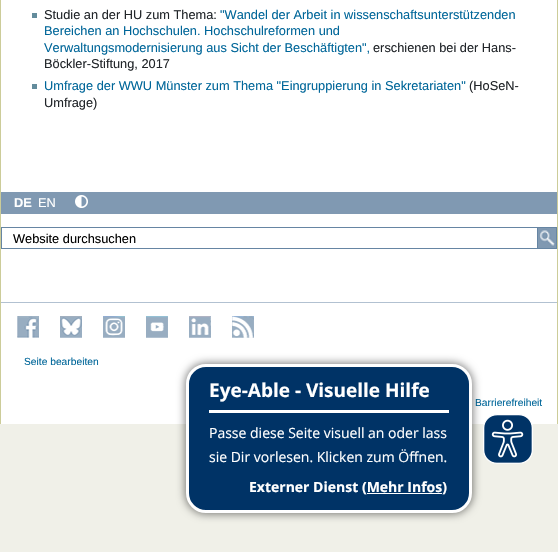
void draw(SkCanvas* canvas) {
    SkPaint paint;
    paint.setAntiAlias(true);
    auto face = [&](const char* family, int weight, float size, bool italic = false) {
        SkFontStyle style(weight, SkFontStyle::kNormal_Width,
            italic ? SkFontStyle::kItalic_Slant : SkFontStyle::kUpright_Slant);
        SkFont result(fontMgr->matchFamilyStyle(family, style), size);
        result.setSubpixel(true);
        return result;
    };
    auto write = [&](const char* s, float x, float y, const SkFont& font, SkColor color) {
        SkPaint ink(SkColor4f::FromColor(color));
        ink.setAntiAlias(true);
        canvas->drawString(s, x, y, font, ink);
    };
    auto block = [&](float x, float y, float w, float h, SkColor color) {
        SkPaint ink(SkColor4f::FromColor(color));
        ink.setAntiAlias(true);
        canvas->drawRect(SkRect::MakeXYWH(x, y, w, h), ink);
    };
    auto paste = [&](const char* path, float x, float y, float w, float h) {
        auto image = SkImages::DeferredFromEncodedData(SkData::MakeFromFileName(path));
        canvas->drawImageRect(image, SkRect::MakeXYWH(x, y, w, h), SkSamplingOptions());
    };
    canvas->clear(SkColorSetRGB(240, 240, 232));
    block(1, 0, 556, 424, SK_ColorWHITE);
    block(557, 0, 1, 424, SkColorSetRGB(204, 204, 153));
    block(0, 0, 1, 424, SkColorSetRGB(204, 204, 153));
    block(32, 13, 5, 5, SkColorSetRGB(99, 140, 156));
    auto kFont1 = face("Liberation Sans", 400, 12.8f);
    write("Studie an der HU zum Thema:", 44, 19, kFont1, SkColorSetRGB(33, 37, 41));
    write("\"Wandel der Arbeit in wissenschaftsunterstützenden", 220, 19, kFont1, SkColorSetRGB(0, 102, 153));
    write("Bereichen an Hochschulen. Hochschulreformen und", 44, 35, kFont1, SkColorSetRGB(0, 102, 153));
    write("Verwaltungsmodernisierung aus Sicht der Beschäftigten\",", 44, 52, kFont1, SkColorSetRGB(0, 102, 153));
    write("erschienen bei der Hans-", 373, 52, kFont1, SkColorSetRGB(33, 37, 41));
    write("Böckler-Stiftung, 2017", 44, 68, kFont1, SkColorSetRGB(33, 37, 41));
    block(32, 84, 5, 5, SkColorSetRGB(99, 140, 156));
    write("Umfrage der WWU Münster zum Thema \"Eingruppierung in Sekretariaten\"", 44, 90, kFont1, SkColorSetRGB(0, 102, 153));
    write("(HoSeN-", 469, 90, kFont1, SkColorSetRGB(33, 37, 41));
    write("Umfrage)", 44, 107, kFont1, SkColorSetRGB(33, 37, 41));
    block(1, 192, 556, 22, SkColorSetRGB(128, 153, 178));
    auto kFont2 = face("Liberation Sans", 700, 12.8f);
    write("DE", 14, 207, kFont2, SK_ColorWHITE);
    write("EN", 38, 207, kFont1, SK_ColorWHITE);
    paste("pic1.png", 75, 195, 13, 13);
    paint.setStyle(SkPaint::kStroke_Style);
    paint.setStrokeWidth(1);
    paint.setColor(SkColorSetRGB(102, 133, 163));
    canvas->drawRect(SkRect::MakeXYWH(1.5f, 227.5f, 555, 21), paint);
    write("Website durchsuchen", 13, 243, kFont1, SK_ColorBLACK);
    canvas->drawRect(SkRect::MakeXYWH(537.5f, 227.5f, 19, 21), paint);
    paste("pic2.png", 538, 228, 18, 20);
    block(1, 302, 556, 1, SkColorSetRGB(178, 193, 209));
    paste("pic3.png", 17, 316, 22, 22);
    paste("pic4.png", 60, 316, 22, 22);
    paste("pic5.png", 103, 316, 22, 22);
    paste("pic6.png", 146, 316, 22, 22);
    paste("pic7.png", 189, 316, 22, 22);
    paste("pic8.png", 232, 316, 22, 22);
    auto kFont3 = face("Liberation Sans", 400, 10.25f);
    write("Seite bearbeiten", 24, 365, kFont3, SkColorSetRGB(0, 102, 153));
    write("Barrierefreiheit", 475, 406, kFont3, SkColorSetRGB(0, 102, 153));
    paint.setStyle(SkPaint::kFill_Style);
    paint.setColor(SkColorSetARGB(128, 0, 0, 0));
    paint.setMaskFilter(SkMaskFilter::MakeBlur(kNormal_SkBlurStyle, 4));
    canvas->drawRoundRect(SkRect::MakeXYWH(185, 363, 288, 151), 21, 21, paint);
    paint.setMaskFilter(nullptr);
    paint.setColor(SkColorSetRGB(0, 51, 102));
    canvas->drawRoundRect(SkRect::MakeXYWH(187.5f, 365.5f, 283, 146), 18.5f, 18.5f, paint);
    paint.setStyle(SkPaint::kStroke_Style);
    paint.setStrokeWidth(3);
    paint.setColor(SK_ColorWHITE);
    canvas->drawRoundRect(SkRect::MakeXYWH(187.5f, 365.5f, 283, 146), 18.5f, 18.5f, paint);
    block(209, 410, 240, 3, SK_ColorWHITE);
    auto kFont4 = face("Open Sans", 700, 19);
    write("Eye-Able - Visuelle Hilfe", 209, 397, kFont4, SK_ColorWHITE);
    auto kFont5 = face("Open Sans", 400, 14);
    write("Passe diese Seite visuell an oder lass", 209, 438, kFont5, SK_ColorWHITE);
    write("sie Dir vorlesen. Klicken zum Öffnen.", 209, 462, kFont5, SK_ColorWHITE);
    auto kFont6 = face("Open Sans", 700, 14);
    write("Externer Dienst (Mehr Infos)", 249, 492, kFont6, SK_ColorWHITE);
    block(367, 493, 75, 1, SK_ColorWHITE);
    paste("pic9.png", 483, 414, 50, 50);
}
